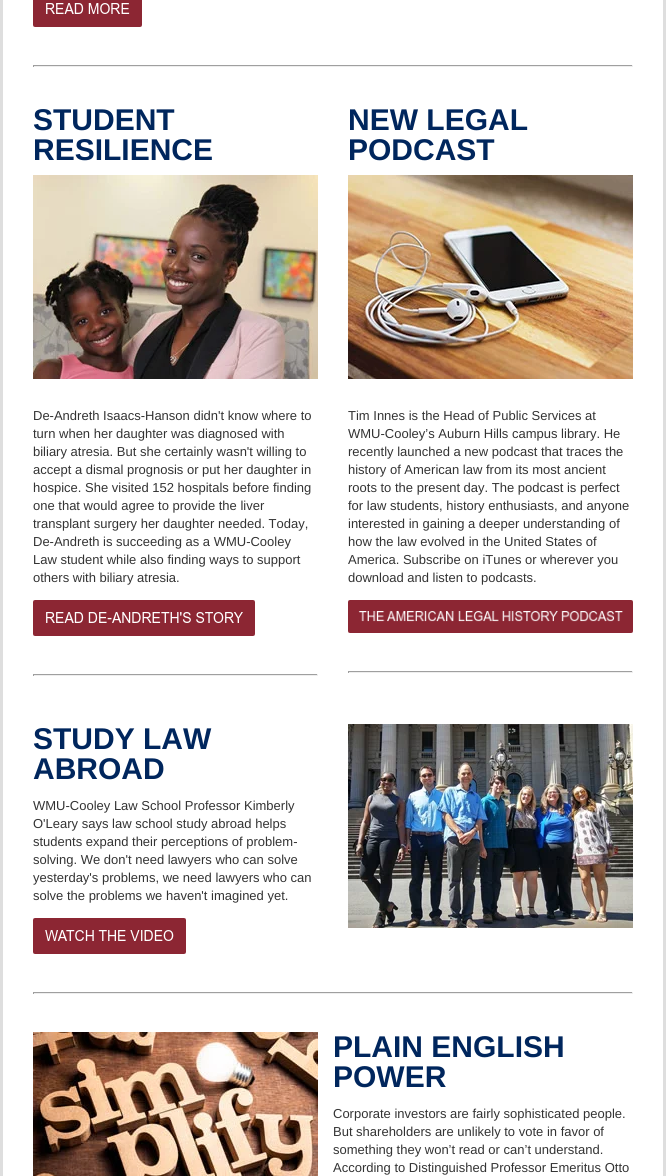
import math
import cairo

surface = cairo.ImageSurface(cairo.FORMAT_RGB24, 666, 1176)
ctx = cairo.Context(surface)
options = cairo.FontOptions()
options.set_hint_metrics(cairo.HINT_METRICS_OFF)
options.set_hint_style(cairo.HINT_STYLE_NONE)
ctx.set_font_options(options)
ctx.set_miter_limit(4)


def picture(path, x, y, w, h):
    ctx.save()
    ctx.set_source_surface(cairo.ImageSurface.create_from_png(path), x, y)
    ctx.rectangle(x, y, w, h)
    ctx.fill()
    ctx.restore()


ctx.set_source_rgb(0.871, 0.871, 0.871)
ctx.paint()
ctx.set_source_rgb(1, 1, 1)
ctx.rectangle(3, 0, 660, 1176)
ctx.fill()
picture("img1.png", 33, 0, 109, 27)
ctx.set_source_rgb(0.624, 0.624, 0.624)
ctx.rectangle(33, 65, 600, 1)
ctx.fill()
ctx.set_source_rgb(0.933, 0.933, 0.933)
ctx.rectangle(632, 65, 1, 2)
ctx.fill()
ctx.rectangle(33, 66, 600, 1)
ctx.fill()
ctx.set_source_rgb(0.624, 0.624, 0.624)
ctx.rectangle(33, 65, 1, 2)
ctx.fill()
ctx.select_font_face("Liberation Sans", cairo.FONT_SLANT_NORMAL, cairo.FONT_WEIGHT_BOLD)
ctx.set_font_size(30)
ctx.set_source_rgb(0, 0.149, 0.365)
ctx.move_to(33, 130)
ctx.show_text("STUDENT")
ctx.move_to(33, 160)
ctx.show_text("RESILIENCE")
picture("img2.png", 33, 175, 285, 204)
ctx.select_font_face("Liberation Sans")
ctx.set_font_size(13)
ctx.set_source_rgb(0.2, 0.2, 0.2)
ctx.move_to(33, 420)
ctx.show_text("De-Andreth Isaacs-Hanson didn't know where to")
ctx.move_to(33, 438)
ctx.show_text("turn when her daughter was diagnosed with")
ctx.move_to(33, 456)
ctx.show_text("biliary atresia. But she certainly wasn't willing to")
ctx.move_to(33, 474)
ctx.show_text("accept a dismal prognosis or put her daughter in")
ctx.move_to(33, 492)
ctx.show_text("hospice. She visited 152 hospitals before finding")
ctx.move_to(33, 510)
ctx.show_text("one that would agree to provide the liver")
ctx.move_to(33, 528)
ctx.show_text("transplant surgery her daughter needed. Today,")
ctx.move_to(33, 546)
ctx.show_text("De-Andreth is succeeding as a WMU-Cooley")
ctx.move_to(33, 564)
ctx.show_text("Law student while also finding ways to support")
ctx.move_to(33, 582)
ctx.show_text("others with biliary atresia.")
picture("img3.png", 33, 600, 222, 36)
ctx.set_source_rgb(0.624, 0.624, 0.624)
ctx.rectangle(33, 674, 285, 1)
ctx.fill()
ctx.set_source_rgb(0.933, 0.933, 0.933)
ctx.rectangle(317, 674, 1, 2)
ctx.fill()
ctx.rectangle(33, 675, 285, 1)
ctx.fill()
ctx.set_source_rgb(0.624, 0.624, 0.624)
ctx.rectangle(33, 674, 1, 2)
ctx.fill()
ctx.select_font_face("Liberation Sans", cairo.FONT_SLANT_NORMAL, cairo.FONT_WEIGHT_BOLD)
ctx.set_font_size(30)
ctx.set_source_rgb(0, 0.149, 0.365)
ctx.move_to(348, 130)
ctx.show_text("NEW LEGAL")
ctx.move_to(348, 160)
ctx.show_text("PODCAST")
picture("img4.png", 348, 175, 285, 204)
ctx.select_font_face("Liberation Sans")
ctx.set_font_size(13)
ctx.set_source_rgb(0.2, 0.2, 0.2)
ctx.move_to(348, 420)
ctx.show_text("Tim Innes is the Head of Public Services at")
ctx.move_to(348, 438)
ctx.show_text("WMU-Cooley’s Auburn Hills campus library. He")
ctx.move_to(348, 456)
ctx.show_text("recently launched a new podcast that traces the")
ctx.move_to(348, 474)
ctx.show_text("history of American law from its most ancient")
ctx.move_to(348, 492)
ctx.show_text("roots to the present day. The podcast is perfect")
ctx.move_to(348, 510)
ctx.show_text("for law students, history enthusiasts, and anyone")
ctx.move_to(348, 528)
ctx.show_text("interested in gaining a deeper understanding of")
ctx.move_to(348, 546)
ctx.show_text("how the law evolved in the United States of")
ctx.move_to(348, 564)
ctx.show_text("America. Subscribe on iTunes or wherever you")
ctx.move_to(348, 582)
ctx.show_text("download and listen to podcasts.")
picture("img5.png", 348, 600, 285, 33)
ctx.set_source_rgb(0.624, 0.624, 0.624)
ctx.rectangle(348, 671, 285, 1)
ctx.fill()
ctx.set_source_rgb(0.933, 0.933, 0.933)
ctx.rectangle(632, 671, 1, 2)
ctx.fill()
ctx.rectangle(348, 672, 285, 1)
ctx.fill()
ctx.set_source_rgb(0.624, 0.624, 0.624)
ctx.rectangle(348, 671, 1, 2)
ctx.fill()
ctx.select_font_face("Liberation Sans", cairo.FONT_SLANT_NORMAL, cairo.FONT_WEIGHT_BOLD)
ctx.set_font_size(30)
ctx.set_source_rgb(0, 0.149, 0.365)
ctx.move_to(33, 749)
ctx.show_text("STUDY LAW")
ctx.move_to(33, 779)
ctx.show_text("ABROAD")
ctx.select_font_face("Liberation Sans")
ctx.set_font_size(13)
ctx.set_source_rgb(0.2, 0.2, 0.2)
ctx.move_to(33, 810)
ctx.show_text("WMU-Cooley Law School Professor Kimberly")
ctx.move_to(33, 828)
ctx.show_text("O'Leary says law school study abroad helps")
ctx.move_to(33, 846)
ctx.show_text("students expand their perceptions of problem-")
ctx.move_to(33, 864)
ctx.show_text("solving. We don't need lawyers who can solve")
ctx.move_to(33, 882)
ctx.show_text("yesterday's problems, we need lawyers who can")
ctx.move_to(33, 900)
ctx.show_text("solve the problems we haven't imagined yet.")
picture("img6.png", 33, 918, 153, 36)
picture("img7.png", 348, 724, 285, 204)
ctx.set_source_rgb(0.624, 0.624, 0.624)
ctx.rectangle(33, 992, 600, 1)
ctx.fill()
ctx.set_source_rgb(0.933, 0.933, 0.933)
ctx.rectangle(632, 992, 1, 2)
ctx.fill()
ctx.rectangle(33, 993, 600, 1)
ctx.fill()
ctx.set_source_rgb(0.624, 0.624, 0.624)
ctx.rectangle(33, 992, 1, 2)
ctx.fill()
picture("img8.png", 33, 1032, 285, 144)
ctx.select_font_face("Liberation Sans", cairo.FONT_SLANT_NORMAL, cairo.FONT_WEIGHT_BOLD)
ctx.set_font_size(30)
ctx.set_source_rgb(0, 0.149, 0.365)
ctx.move_to(333, 1057)
ctx.show_text("PLAIN ENGLISH")
ctx.move_to(333, 1087)
ctx.show_text("POWER")
ctx.select_font_face("Liberation Sans")
ctx.set_font_size(13)
ctx.set_source_rgb(0.2, 0.2, 0.2)
ctx.move_to(333, 1118)
ctx.show_text("Corporate investors are fairly sophisticated people.")
ctx.move_to(333, 1136)
ctx.show_text("But shareholders are unlikely to vote in favor of")
ctx.move_to(333, 1154)
ctx.show_text("something they won’t read or can’t understand.")
ctx.move_to(333, 1172)
ctx.show_text("According to Distinguished Professor Emeritus Otto")
surface.write_to_png("page.png")
